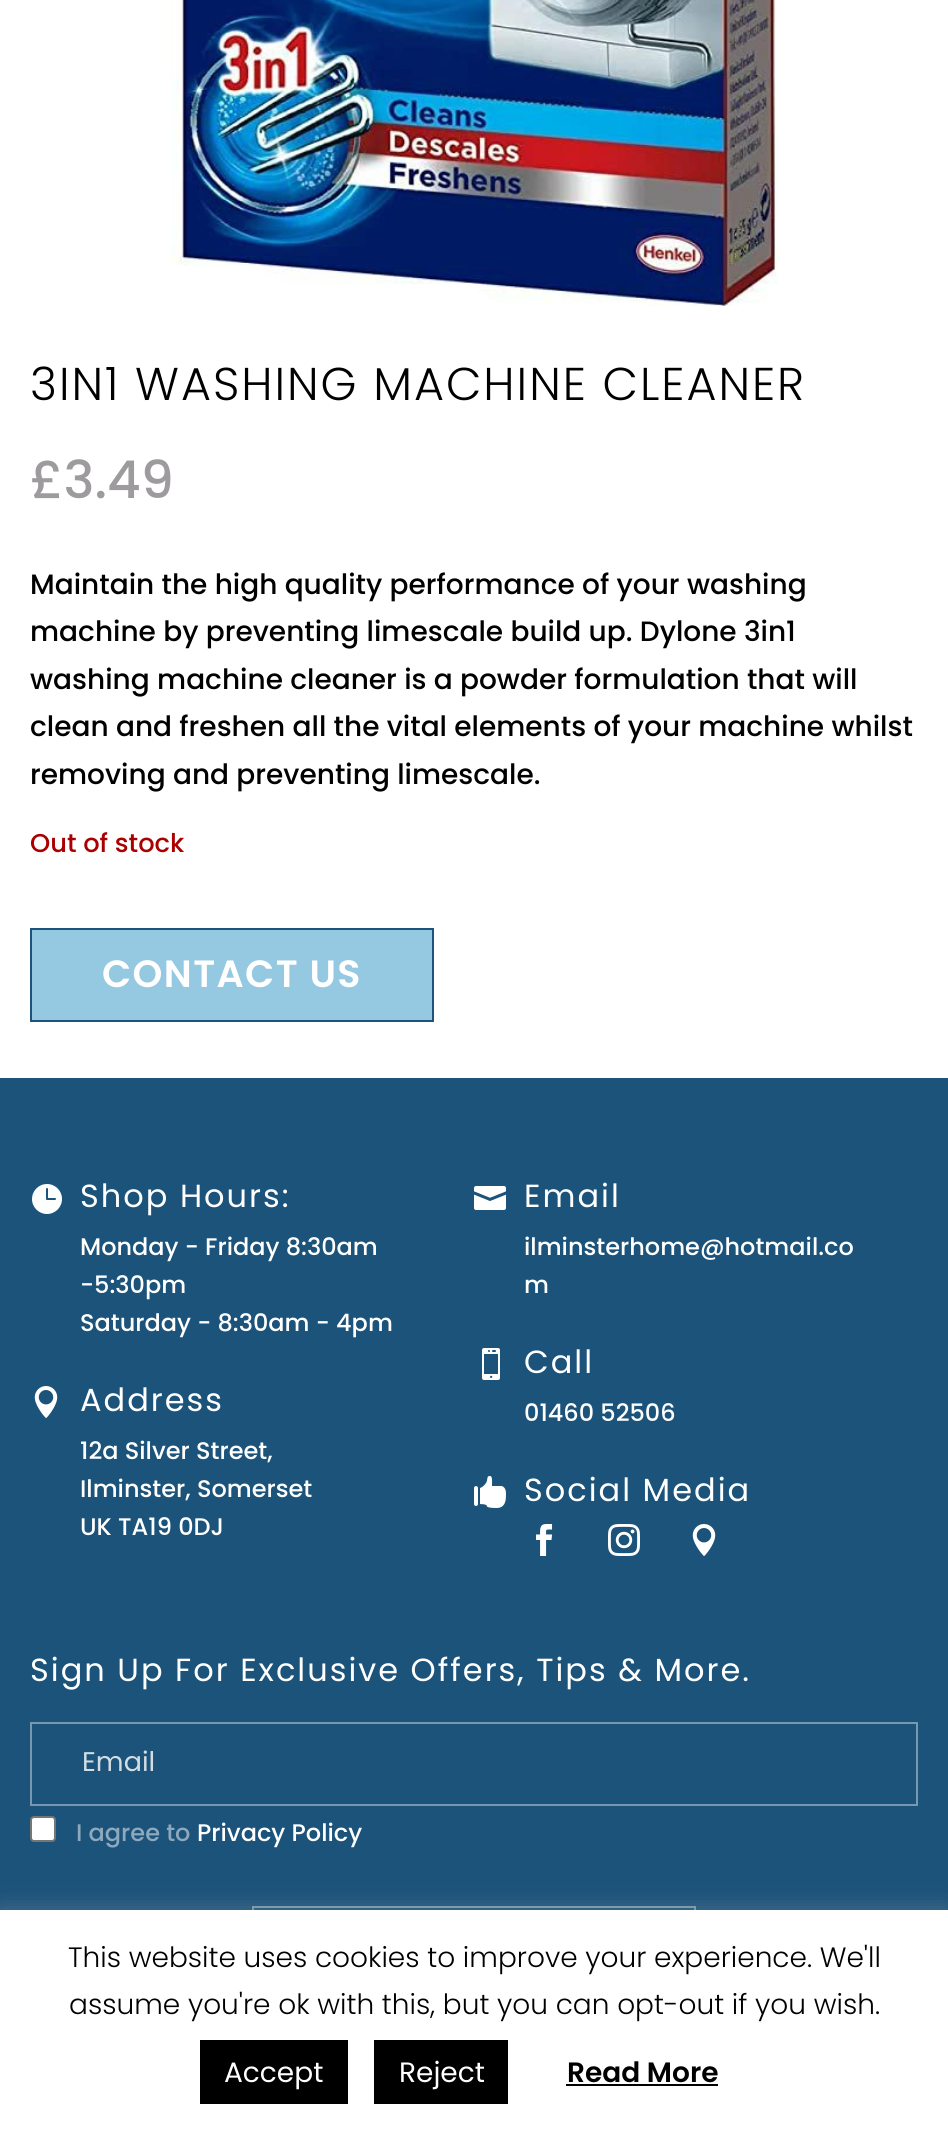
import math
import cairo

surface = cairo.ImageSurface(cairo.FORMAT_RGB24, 948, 2137)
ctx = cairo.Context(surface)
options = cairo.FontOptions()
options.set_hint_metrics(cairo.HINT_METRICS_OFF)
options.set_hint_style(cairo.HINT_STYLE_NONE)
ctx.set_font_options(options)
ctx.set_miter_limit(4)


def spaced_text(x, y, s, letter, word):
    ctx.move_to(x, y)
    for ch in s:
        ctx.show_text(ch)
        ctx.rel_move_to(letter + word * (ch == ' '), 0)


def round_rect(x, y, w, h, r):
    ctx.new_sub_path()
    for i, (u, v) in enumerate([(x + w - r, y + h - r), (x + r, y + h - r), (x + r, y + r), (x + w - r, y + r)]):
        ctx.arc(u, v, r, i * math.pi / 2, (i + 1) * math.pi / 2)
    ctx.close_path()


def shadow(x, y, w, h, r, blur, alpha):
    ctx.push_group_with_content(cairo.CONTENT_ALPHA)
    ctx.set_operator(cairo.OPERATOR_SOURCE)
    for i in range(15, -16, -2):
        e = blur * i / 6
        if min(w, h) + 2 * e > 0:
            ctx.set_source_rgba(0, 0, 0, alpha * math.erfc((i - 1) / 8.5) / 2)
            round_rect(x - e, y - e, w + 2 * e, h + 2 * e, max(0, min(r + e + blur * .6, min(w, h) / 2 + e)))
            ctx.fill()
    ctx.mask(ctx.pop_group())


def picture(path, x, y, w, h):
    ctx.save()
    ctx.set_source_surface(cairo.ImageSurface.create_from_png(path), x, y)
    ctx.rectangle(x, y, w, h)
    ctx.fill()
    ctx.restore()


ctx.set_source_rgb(1, 1, 1)
ctx.paint()
picture("img1.png", 170, 0, 608, 306)
ctx.select_font_face("Poppins Light")
ctx.set_font_size(46)
ctx.set_source_rgb(0, 0, 0)
spaced_text(30, 400, "3IN1 WASHING MACHINE CLEANER", 2, 0)
ctx.select_font_face("Poppins Medium")
ctx.set_font_size(52)
ctx.set_source_rgb(0.62, 0.608, 0.62)
ctx.move_to(30, 498)
ctx.show_text("£3.49")
ctx.set_font_size(28)
ctx.set_source_rgb(0, 0, 0)
ctx.move_to(30, 594)
ctx.show_text("Maintain the high quality performance of your washing")
ctx.move_to(30, 641)
ctx.show_text("machine by preventing limescale build up. Dylone 3in1")
ctx.move_to(30, 689)
ctx.show_text("washing machine cleaner is a powder formulation that will")
ctx.move_to(30, 736)
ctx.show_text("clean and freshen all the vital elements of your machine whilst")
ctx.move_to(30, 784)
ctx.show_text("removing and preventing limescale.")
ctx.set_font_size(25.75)
ctx.set_source_rgb(0.667, 0, 0)
ctx.move_to(30, 852)
ctx.show_text("Out of stock")
ctx.set_source_rgb(0.584, 0.788, 0.882)
ctx.rectangle(31, 929, 402, 92)
ctx.fill_preserve()
ctx.set_source_rgb(0.11, 0.325, 0.478)
ctx.stroke()
ctx.select_font_face("Poppins SemiBold")
ctx.set_font_size(38)
ctx.set_source_rgb(1, 1, 1)
spaced_text(102, 987, "CONTACT US", 1.4, 0)
ctx.set_source_rgb(0.11, 0.325, 0.478)
ctx.rectangle(0, 1078, 948, 832)
ctx.fill()
picture("img2.png", 32, 1184, 30, 30)
ctx.select_font_face("Poppins")
ctx.set_font_size(32)
ctx.set_source_rgb(1, 1, 1)
spaced_text(80, 1207, "Shop Hours:", 2, 0)
ctx.select_font_face("Poppins Medium")
ctx.set_font_size(24)
ctx.move_to(80, 1255)
ctx.show_text("Monday - Friday 8:30am")
ctx.move_to(80, 1293)
ctx.show_text("-5:30pm")
ctx.move_to(80, 1331)
ctx.show_text("Saturday - 8:30am - 4pm")
picture("img3.png", 34, 1386, 24, 32)
ctx.select_font_face("Poppins")
ctx.set_font_size(32)
spaced_text(80, 1411, "Address", 2, 0)
ctx.select_font_face("Poppins Medium")
ctx.set_font_size(24)
ctx.move_to(80, 1459)
ctx.show_text("12a Silver Street,")
ctx.move_to(80, 1497)
ctx.show_text("Ilminster, Somerset")
ctx.move_to(80, 1535)
ctx.show_text("UK TA19 0DJ")
picture("img4.png", 474, 1186, 32, 24)
ctx.select_font_face("Poppins")
ctx.set_font_size(32)
spaced_text(524, 1207, "Email", 2, 0)
ctx.select_font_face("Poppins Medium")
ctx.set_font_size(24)
ctx.move_to(524, 1255)
ctx.show_text("ilminsterhome@hotmail.co")
ctx.move_to(524, 1293)
ctx.show_text("m")
picture("img5.png", 482, 1348, 18, 32)
ctx.select_font_face("Poppins")
ctx.set_font_size(32)
spaced_text(524, 1373, "Call", 2, 0)
ctx.select_font_face("Poppins Medium")
ctx.set_font_size(24)
ctx.move_to(524, 1421)
ctx.show_text("01460 52506")
picture("img6.png", 474, 1476, 32, 32)
ctx.select_font_face("Poppins")
ctx.set_font_size(32)
spaced_text(524, 1501, "Social Media", 2, 0)
picture("img7.png", 536, 1524, 17, 32)
picture("img8.png", 608, 1524, 32, 32)
picture("img3.png", 692, 1524, 24, 32)
spaced_text(30, 1681, "Sign Up For Exclusive Offers, Tips & More.", 2, 0)
ctx.rectangle(31, 1723, 886, 82)
ctx.set_source_rgb(0.467, 0.596, 0.686)
ctx.stroke()
ctx.set_font_size(27)
ctx.set_source_rgb(0.824, 0.867, 0.894)
ctx.move_to(82, 1771)
ctx.show_text("Email")
ctx.set_source_rgb(1, 1, 1)
round_rect(31, 1817, 24, 24, 3)
ctx.fill_preserve()
ctx.set_source_rgb(0.463, 0.463, 0.463)
ctx.stroke()
ctx.select_font_face("Poppins Medium")
ctx.set_font_size(24)
ctx.set_source_rgb(0.557, 0.663, 0.741)
ctx.move_to(76, 1841)
ctx.show_text("I agree to")
ctx.set_source_rgb(1, 1, 1)
ctx.move_to(197, 1841)
ctx.show_text("Privacy Policy")
ctx.rectangle(253, 1907, 442, 82)
ctx.set_source_rgb(0.467, 0.596, 0.686)
ctx.stroke()
ctx.set_source_rgb(0.675, 0.671, 0.671)
shadow(0, 1908, 948, 228, 0, 10, 0.3)
ctx.set_source_rgb(1, 1, 1)
ctx.rectangle(0, 1910, 948, 227)
ctx.fill()
ctx.select_font_face("Poppins Light")
ctx.set_font_size(28)
ctx.set_source_rgb(0, 0, 0)
ctx.move_to(68, 1967)
ctx.show_text("This website uses cookies to improve your experience. We'll")
ctx.move_to(69, 2014)
ctx.show_text("assume you're ok with this, but you can opt-out if you wish.")
ctx.rectangle(200, 2040, 148, 64)
ctx.fill()
ctx.select_font_face("Poppins")
ctx.set_source_rgb(1, 1, 1)
ctx.move_to(224, 2082)
ctx.show_text("Accept")
ctx.set_source_rgb(0, 0, 0)
ctx.rectangle(374, 2040, 134, 64)
ctx.fill()
ctx.set_source_rgb(1, 1, 1)
ctx.move_to(399, 2082)
ctx.show_text("Reject")
ctx.select_font_face("Poppins SemiBold")
ctx.set_source_rgb(0, 0, 0)
ctx.move_to(567, 2082)
ctx.show_text("Read More")
ctx.rectangle(566, 2084, 152, 2)
ctx.fill()
surface.write_to_png("page.png")
